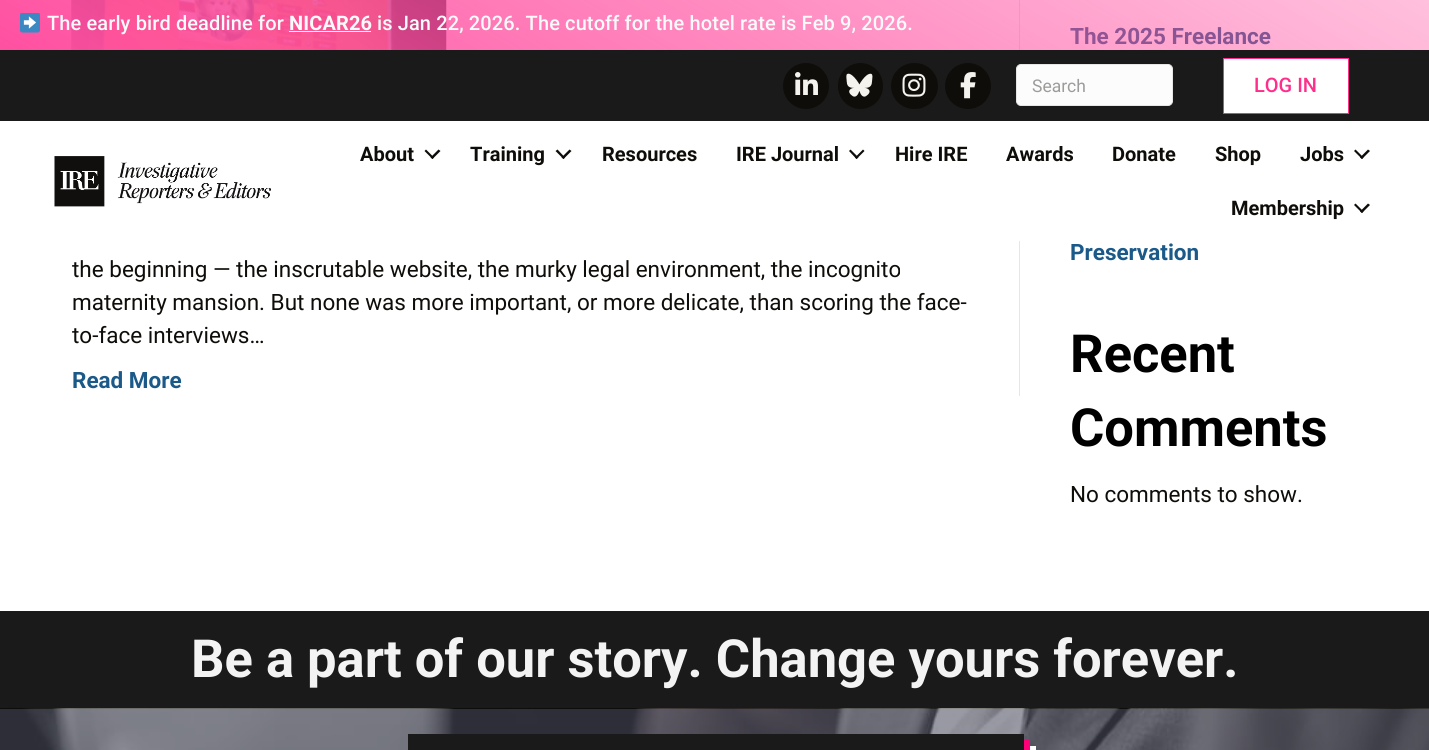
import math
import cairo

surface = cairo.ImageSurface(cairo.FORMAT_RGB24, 1429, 750)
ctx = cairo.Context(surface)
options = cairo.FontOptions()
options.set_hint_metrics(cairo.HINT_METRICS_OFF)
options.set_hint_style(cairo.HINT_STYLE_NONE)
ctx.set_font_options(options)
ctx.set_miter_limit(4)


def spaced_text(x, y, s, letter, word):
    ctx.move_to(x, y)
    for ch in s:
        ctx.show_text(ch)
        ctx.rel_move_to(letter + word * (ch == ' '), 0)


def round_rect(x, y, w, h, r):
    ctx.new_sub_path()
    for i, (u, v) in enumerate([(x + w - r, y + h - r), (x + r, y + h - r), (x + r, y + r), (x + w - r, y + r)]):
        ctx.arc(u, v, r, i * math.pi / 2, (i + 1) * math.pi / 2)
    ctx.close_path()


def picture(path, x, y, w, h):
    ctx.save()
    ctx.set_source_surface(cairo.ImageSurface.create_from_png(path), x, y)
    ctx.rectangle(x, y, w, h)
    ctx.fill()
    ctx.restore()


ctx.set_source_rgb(1, 1, 1)
ctx.paint()
ctx.set_source_rgb(0.902, 0.902, 0.902)
ctx.rectangle(1019, 0, 1, 396)
ctx.fill()
picture("img7.png", 71, 0, 376, 50)
ctx.select_font_face("Roboto", cairo.FONT_SLANT_NORMAL, cairo.FONT_WEIGHT_BOLD)
ctx.set_font_size(22.5)
ctx.set_source_rgb(0.102, 0.349, 0.533)
ctx.move_to(1070, 44)
ctx.show_text("The 2025 Freelance")
gradient = cairo.LinearGradient(525, 353, 905, -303)
gradient.add_color_stop_rgba(0, 1, 0.314, 0.631, 1)
gradient.add_color_stop_rgba(1, 1, 0.314, 0.631, 0.36)
ctx.set_source(gradient)
ctx.rectangle(0, 0, 1429, 50)
ctx.fill()
picture("img1.png", 20, 13, 20, 20)
ctx.select_font_face("Roboto Medium")
ctx.set_font_size(20)
ctx.set_source_rgb(0.98, 0.98, 0.98)
spaced_text(47, 30, "The early bird deadline for", 0.12, 0)
ctx.select_font_face("Roboto", cairo.FONT_SLANT_NORMAL, cairo.FONT_WEIGHT_BOLD)
spaced_text(289, 30, "NICAR26", 0.12, 0)
ctx.rectangle(289, 31, 82, 1)
ctx.fill()
ctx.select_font_face("Roboto Medium")
spaced_text(377, 30, "is Jan 22, 2026. The cutoff for the hotel rate is Feb 9, 2026.", 0.12, 0)
ctx.set_source_rgb(0.102, 0.102, 0.102)
ctx.rectangle(0, 50, 1429, 71)
ctx.fill()
ctx.set_source_rgb(0.059, 0.051, 0.039)
ctx.arc(806, 86, 23, 0, 2 * math.pi)
ctx.fill()
picture("img2.png", 795, 72, 23, 23)
round_rect(838, 63, 45, 46, 22.5)
ctx.fill()
picture("img3.png", 846, 73, 27, 24)
round_rect(891, 63, 47, 46, 23)
ctx.fill()
picture("img4.png", 902, 73, 24, 24)
ctx.arc(968, 86, 23, 0, 2 * math.pi)
ctx.fill()
picture("img5.png", 960, 72, 16, 27)
ctx.set_source_rgb(0.988, 0.988, 0.988)
round_rect(1016.5, 64.5, 156, 41, 4.5)
ctx.fill_preserve()
ctx.set_source_rgb(0.902, 0.902, 0.902)
ctx.set_line_width(1)
ctx.stroke()
ctx.select_font_face("Roboto")
ctx.set_font_size(17.5)
ctx.set_source_rgb(0.616, 0.612, 0.608)
ctx.move_to(1032, 92)
ctx.show_text("Search")
ctx.set_source_rgb(1, 1, 1)
ctx.rectangle(1223.5, 58.5, 125, 55)
ctx.fill_preserve()
ctx.set_source_rgb(1, 0.18, 0.541)
ctx.stroke()
ctx.select_font_face("Roboto Medium")
ctx.set_font_size(20)
ctx.move_to(1254, 92)
ctx.show_text("LOG IN")
ctx.set_source_rgb(1, 1, 1)
ctx.rectangle(1019, 121, 1, 120)
ctx.fill()
picture("img6.png", 54, 156, 217, 51)
ctx.select_font_face("Roboto", cairo.FONT_SLANT_NORMAL, cairo.FONT_WEIGHT_BOLD)
ctx.set_source_rgb(0.059, 0.051, 0.039)
ctx.move_to(360, 161)
ctx.show_text("About")
ctx.new_path()
ctx.move_to(438.5, 149.5)
ctx.line_to(440.5, 151)
ctx.line_to(432.5, 159)
ctx.line_to(430.5, 157.5)
ctx.close_path()
ctx.fill()
ctx.new_path()
ctx.move_to(426, 149.5)
ctx.line_to(434, 157.5)
ctx.line_to(432.5, 159)
ctx.line_to(424.5, 151)
ctx.close_path()
ctx.fill()
ctx.move_to(470, 161)
ctx.show_text("Training")
ctx.new_path()
ctx.move_to(569.5, 149.5)
ctx.line_to(571.5, 151)
ctx.line_to(563.5, 159)
ctx.line_to(561.5, 157.5)
ctx.close_path()
ctx.fill()
ctx.new_path()
ctx.move_to(557.5, 149.5)
ctx.line_to(565, 157.5)
ctx.line_to(563.5, 159)
ctx.line_to(555.5, 151)
ctx.close_path()
ctx.fill()
ctx.move_to(602, 161)
ctx.show_text("Resources")
ctx.move_to(736, 161)
ctx.show_text("IRE Journal")
ctx.new_path()
ctx.move_to(863, 149.5)
ctx.line_to(864.5, 151)
ctx.line_to(856.5, 159)
ctx.line_to(855, 157.5)
ctx.close_path()
ctx.fill()
ctx.new_path()
ctx.move_to(850.5, 149.5)
ctx.line_to(858.5, 157.5)
ctx.line_to(856.5, 159)
ctx.line_to(849, 151)
ctx.close_path()
ctx.fill()
ctx.move_to(895, 161)
ctx.show_text("Hire IRE")
ctx.move_to(1006, 161)
ctx.show_text("Awards")
ctx.move_to(1112, 161)
ctx.show_text("Donate")
ctx.move_to(1215, 161)
ctx.show_text("Shop")
ctx.move_to(1300, 161)
ctx.show_text("Jobs")
ctx.new_path()
ctx.move_to(1368, 149.5)
ctx.line_to(1370, 151)
ctx.line_to(1362, 159)
ctx.line_to(1360, 157.5)
ctx.close_path()
ctx.fill()
ctx.new_path()
ctx.move_to(1355.5, 149.5)
ctx.line_to(1363.5, 157.5)
ctx.line_to(1362, 159)
ctx.line_to(1354, 151)
ctx.close_path()
ctx.fill()
ctx.move_to(1231, 215)
ctx.show_text("Membership")
ctx.new_path()
ctx.move_to(1368, 203.5)
ctx.line_to(1370, 205)
ctx.line_to(1362, 213)
ctx.line_to(1360, 211.5)
ctx.close_path()
ctx.fill()
ctx.new_path()
ctx.move_to(1355.5, 203.5)
ctx.line_to(1363.5, 211.5)
ctx.line_to(1362, 213)
ctx.line_to(1354, 205)
ctx.close_path()
ctx.fill()
ctx.select_font_face("Roboto")
ctx.set_font_size(22.5)
ctx.move_to(72, 277)
ctx.show_text("the beginning — the inscrutable website, the murky legal environment, the incognito")
ctx.move_to(72, 310)
ctx.show_text("maternity mansion. But none was more important, or more delicate, than scoring the face-")
ctx.move_to(72, 343)
ctx.show_text("to-face interviews…")
ctx.select_font_face("Roboto", cairo.FONT_SLANT_NORMAL, cairo.FONT_WEIGHT_BOLD)
ctx.set_source_rgb(0.102, 0.349, 0.533)
ctx.move_to(72, 388)
ctx.show_text("Read More")
ctx.move_to(1070, 260)
ctx.show_text("Preservation")
ctx.set_font_size(52.5)
ctx.set_source_rgb(0, 0, 0)
ctx.move_to(1070, 372)
ctx.show_text("Recent")
ctx.move_to(1070, 446)
ctx.show_text("Comments")
ctx.select_font_face("Roboto")
ctx.set_font_size(22.5)
ctx.set_source_rgb(0.059, 0.051, 0.039)
ctx.move_to(1070, 502)
ctx.show_text("No comments to show.")
ctx.set_source_rgb(0.102, 0.102, 0.102)
ctx.rectangle(0, 611, 1429, 98)
ctx.fill()
ctx.select_font_face("Roboto", cairo.FONT_SLANT_NORMAL, cairo.FONT_WEIGHT_BOLD)
ctx.set_font_size(52.5)
ctx.set_source_rgb(0.953, 0.953, 0.953)
ctx.move_to(191, 677)
ctx.show_text("Be a part of our story. Change yours forever.")
picture("img8.png", 0, 708, 1429, 42)
ctx.set_source_rgb(1, 1, 1)
ctx.new_path()
ctx.move_to(420, 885)
ctx.line_to(420, 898)
ctx.line_to(1036, 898)
ctx.line_to(1036, 746)
ctx.line_to(1024, 746)
ctx.line_to(1024, 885)
ctx.close_path()
ctx.fill()
ctx.set_source_rgb(1, 0, 0.471)
ctx.new_path()
ctx.move_to(414, 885)
ctx.line_to(414, 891)
ctx.line_to(1030, 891)
ctx.line_to(1030, 740)
ctx.line_to(1024, 740)
ctx.line_to(1024, 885)
ctx.close_path()
ctx.fill()
ctx.set_source_rgb(0.102, 0.102, 0.102)
ctx.rectangle(408, 734, 616, 16)
ctx.fill()
surface.write_to_png("page.png")
